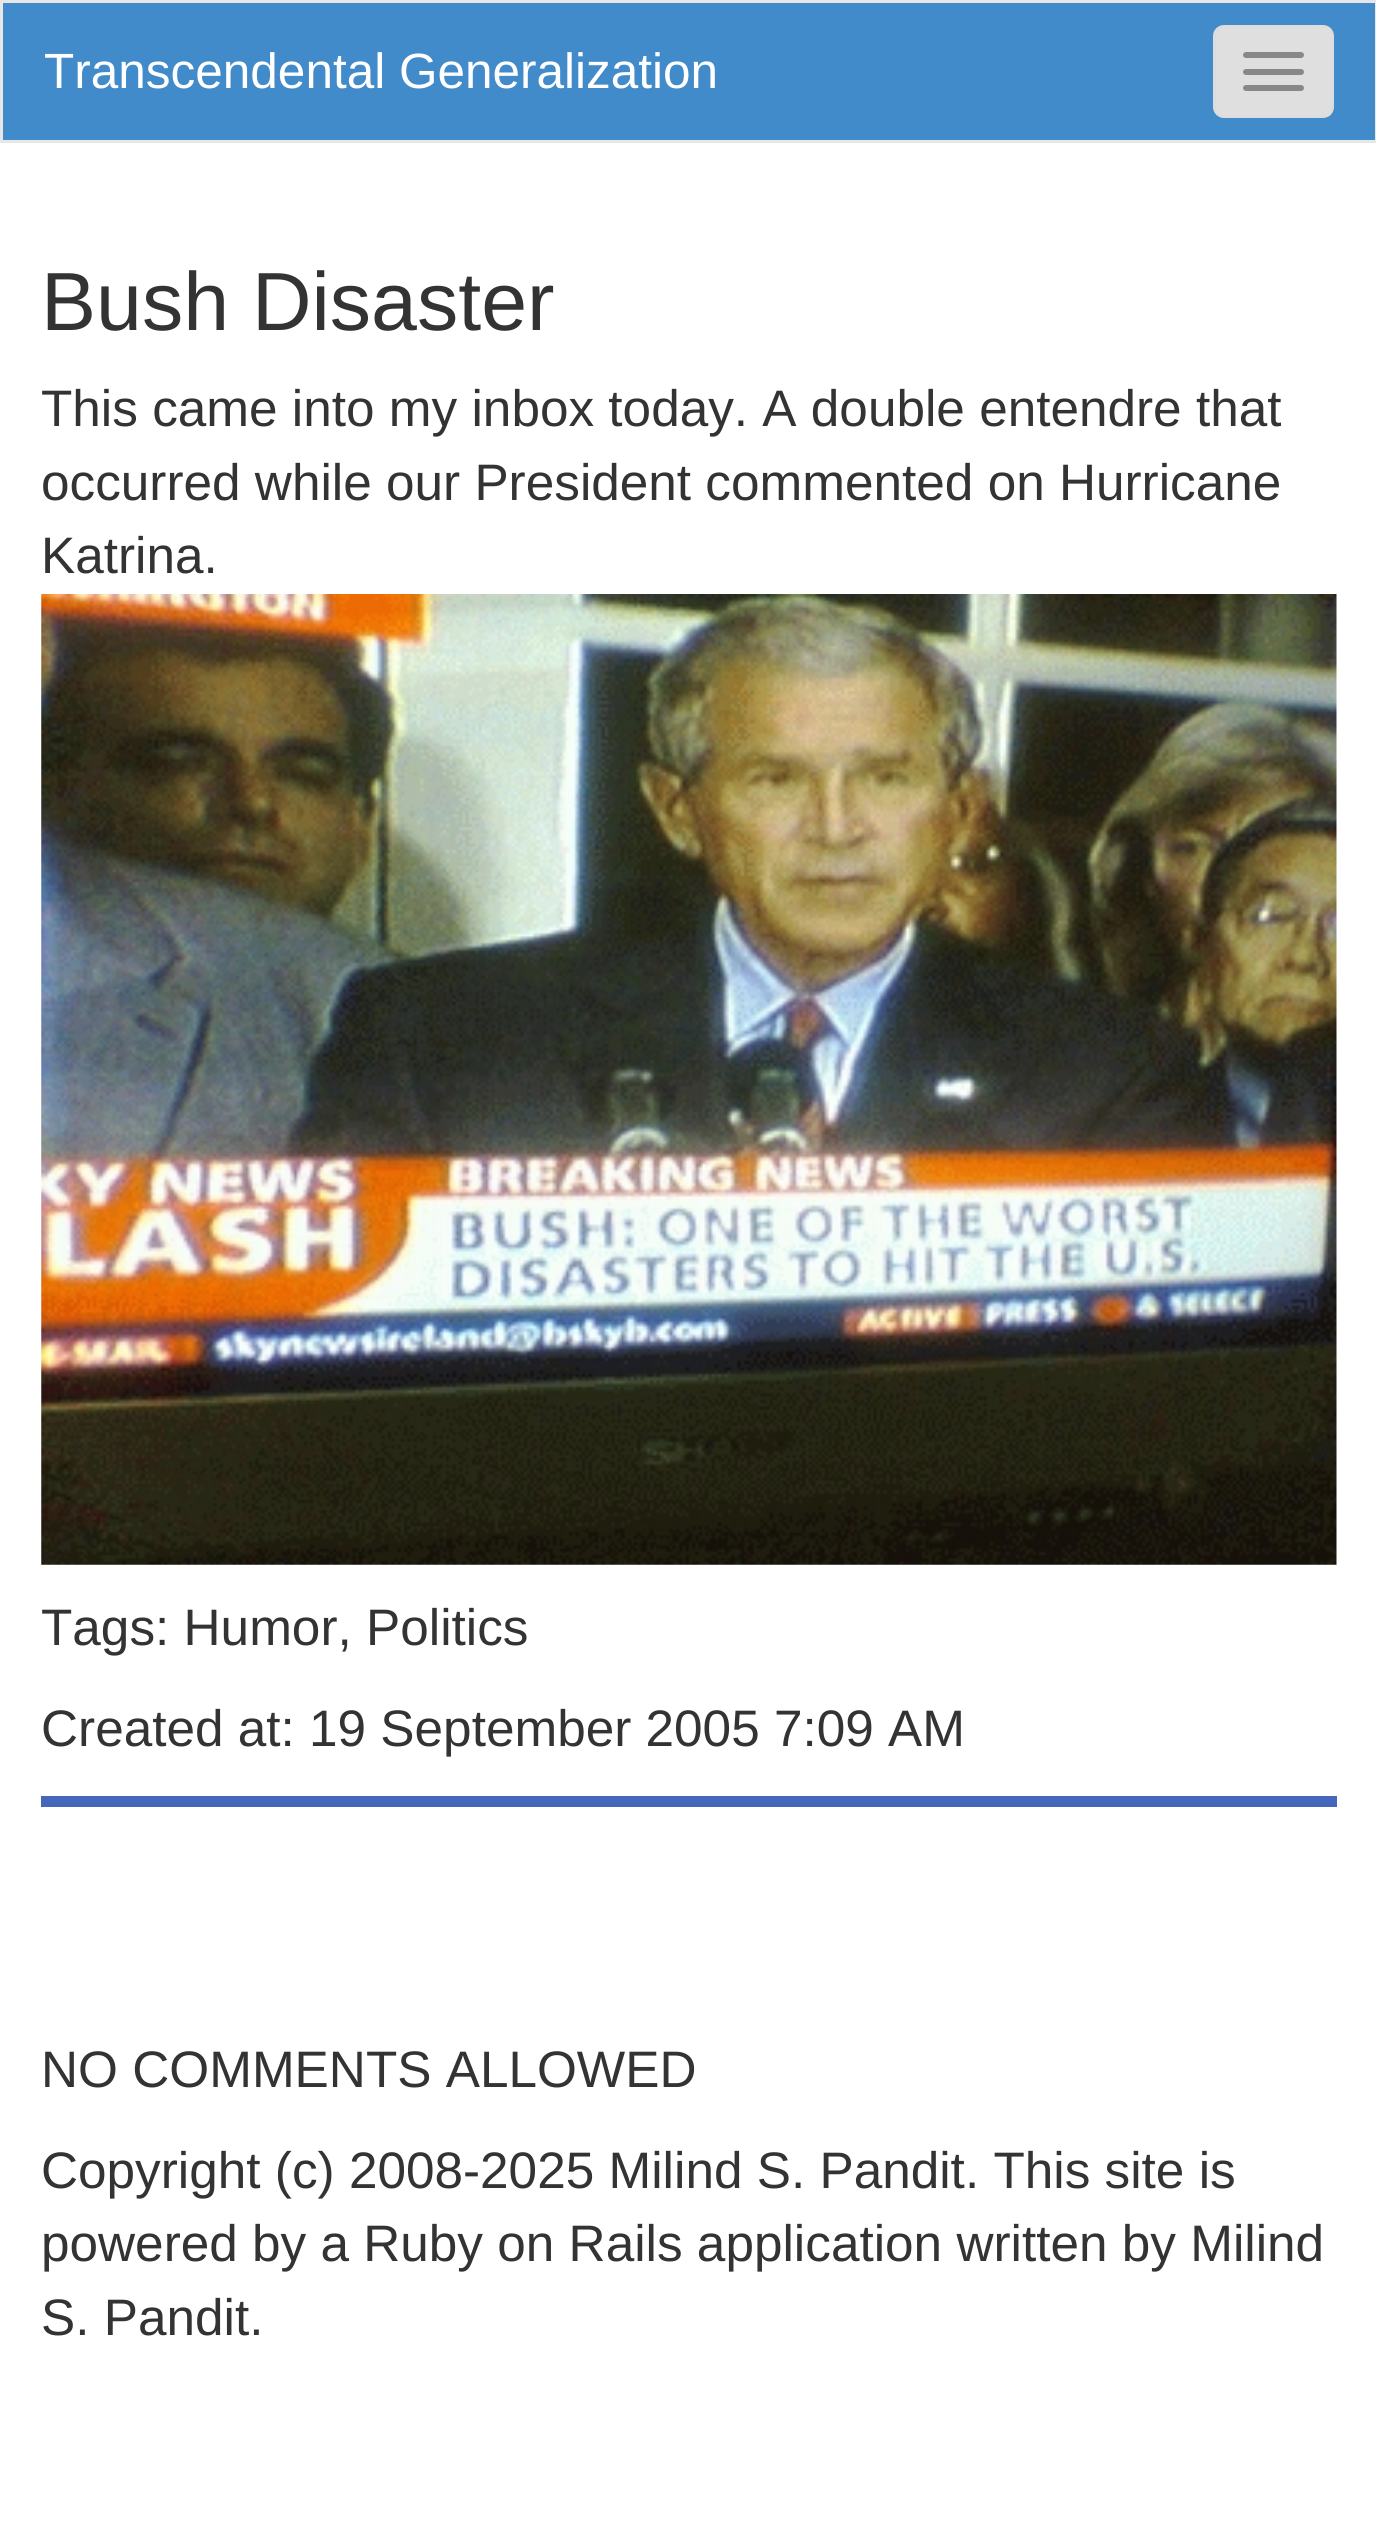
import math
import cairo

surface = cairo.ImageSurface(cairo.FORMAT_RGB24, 1376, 2521)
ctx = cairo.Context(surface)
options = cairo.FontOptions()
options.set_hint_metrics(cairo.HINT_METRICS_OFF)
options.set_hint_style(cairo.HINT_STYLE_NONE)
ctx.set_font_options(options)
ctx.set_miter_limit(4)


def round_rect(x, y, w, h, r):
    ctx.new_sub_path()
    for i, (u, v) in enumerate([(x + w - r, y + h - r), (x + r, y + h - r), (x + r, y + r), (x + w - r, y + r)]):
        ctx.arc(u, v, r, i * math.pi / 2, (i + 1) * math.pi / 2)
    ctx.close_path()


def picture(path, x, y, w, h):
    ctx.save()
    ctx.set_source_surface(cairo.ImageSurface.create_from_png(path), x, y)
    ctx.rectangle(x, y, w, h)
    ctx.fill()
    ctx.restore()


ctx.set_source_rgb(1, 1, 1)
ctx.paint()
ctx.set_source_rgb(0.259, 0.545, 0.792)
ctx.rectangle(1.5, 1.5, 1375, 140)
ctx.fill_preserve()
ctx.set_source_rgb(0.906, 0.906, 0.906)
ctx.set_line_width(3)
ctx.stroke()
ctx.select_font_face("Liberation Sans")
ctx.set_font_size(49.5)
ctx.set_source_rgb(1, 1, 1)
ctx.move_to(44, 88)
ctx.show_text("Transcendental Generalization")
ctx.set_source_rgb(0.875, 0.875, 0.875)
round_rect(1214.5, 26.5, 118, 90, 9.5)
ctx.fill_preserve()
ctx.set_source_rgb(0.867, 0.867, 0.867)
ctx.stroke()
ctx.set_source_rgb(0.533, 0.533, 0.533)
round_rect(1243, 52, 61, 6, 3)
ctx.fill()
round_rect(1243, 69, 61, 6, 3)
ctx.fill()
round_rect(1243, 85, 61, 6, 3)
ctx.fill()
ctx.set_font_size(82.5)
ctx.set_source_rgb(0.2, 0.2, 0.2)
ctx.move_to(41, 330)
ctx.show_text("Bush Disaster")
ctx.set_font_size(51.3)
ctx.move_to(41, 426)
ctx.show_text("This came into my inbox today. A double entendre that")
ctx.move_to(41, 500)
ctx.show_text("occurred while our President commented on Hurricane")
ctx.move_to(41, 573)
ctx.show_text("Katrina.")
picture("img1.png", 41, 594, 1296, 971)
ctx.move_to(41, 1645)
ctx.show_text("Tags: Humor, Politics")
ctx.move_to(41, 1746)
ctx.show_text("Created at: 19 September 2005")
ctx.move_to(774, 1746)
ctx.show_text("7:09 AM")
ctx.set_source_rgb(0.267, 0.4, 0.733)
ctx.rectangle(41, 1796, 1296, 11)
ctx.fill()
ctx.set_source_rgb(0.2, 0.2, 0.2)
ctx.move_to(41, 2087)
ctx.show_text("NO COMMENTS ALLOWED")
ctx.move_to(41, 2188)
ctx.show_text("Copyright (c) 2008-2025 Milind S. Pandit. This site is")
ctx.move_to(41, 2261)
ctx.show_text("powered by a Ruby on Rails application written by Milind")
ctx.move_to(41, 2335)
ctx.show_text("S. Pandit.")
surface.write_to_png("page.png")
